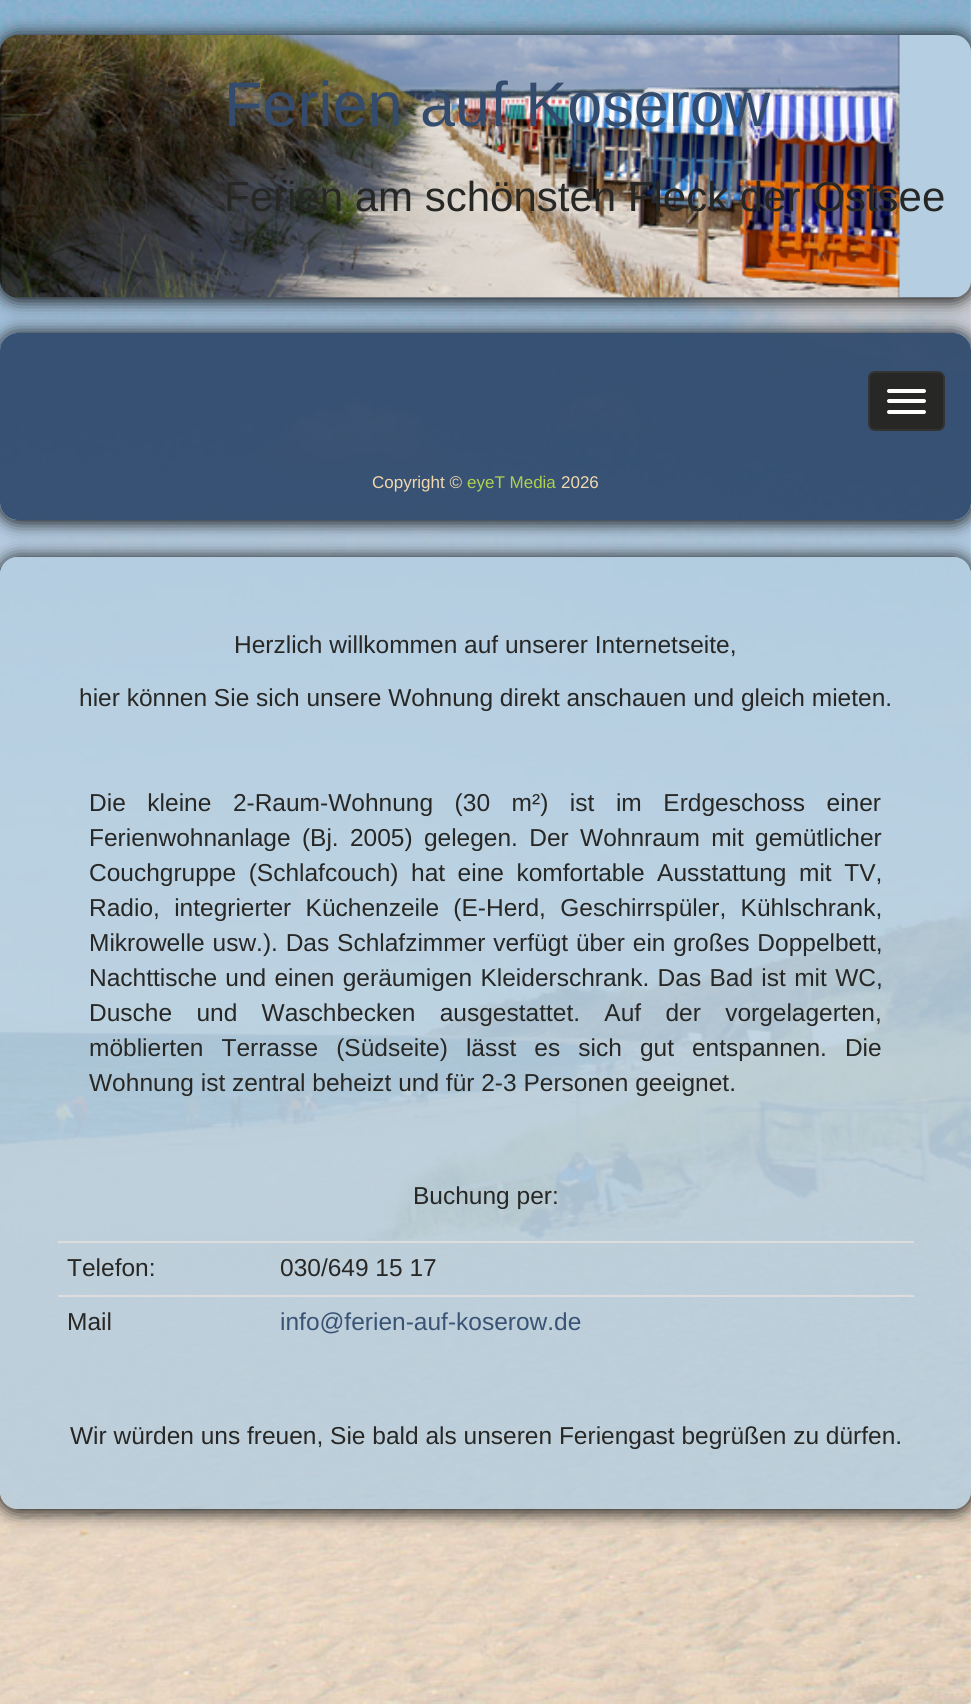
import math
import cairo

surface = cairo.ImageSurface(cairo.FORMAT_RGB24, 971, 1704)
ctx = cairo.Context(surface)
options = cairo.FontOptions()
options.set_hint_metrics(cairo.HINT_METRICS_OFF)
options.set_hint_style(cairo.HINT_STYLE_NONE)
ctx.set_font_options(options)
ctx.set_miter_limit(4)


def spaced_text(x, y, s, letter, word):
    ctx.move_to(x, y)
    for ch in s:
        ctx.show_text(ch)
        ctx.rel_move_to(letter + word * (ch == ' '), 0)


def round_rect(x, y, w, h, r):
    ctx.new_sub_path()
    for i, (u, v) in enumerate([(x + w - r, y + h - r), (x + r, y + h - r), (x + r, y + r), (x + w - r, y + r)]):
        ctx.arc(u, v, r, i * math.pi / 2, (i + 1) * math.pi / 2)
    ctx.close_path()


def shadow(x, y, w, h, r, blur, alpha):
    ctx.push_group_with_content(cairo.CONTENT_ALPHA)
    ctx.set_operator(cairo.OPERATOR_SOURCE)
    for i in range(15, -16, -2):
        e = blur * i / 6
        if min(w, h) + 2 * e > 0:
            ctx.set_source_rgba(0, 0, 0, alpha * math.erfc((i - 1) / 8.5) / 2)
            round_rect(x - e, y - e, w + 2 * e, h + 2 * e, max(0, min(r + e + blur * .6, min(w, h) / 2 + e)))
            ctx.fill()
    ctx.mask(ctx.pop_group())


def picture(path, x, y, w, h):
    ctx.save()
    ctx.set_source_surface(cairo.ImageSurface.create_from_png(path), x, y)
    ctx.rectangle(x, y, w, h)
    ctx.fill()
    ctx.restore()


ctx.set_source_rgb(1, 1, 1)
ctx.paint()
picture("img1.png", 0, 0, 971, 1704)
ctx.set_source_rgb(0.067, 0.067, 0.067)
shadow(-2, 35, 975, 266, 19, 9, 1)
picture("img2.png", 0, 35, 971, 263)
ctx.select_font_face("Liberation Sans")
ctx.set_font_size(63)
ctx.set_source_rgb(0.2, 0.294, 0.424)
ctx.move_to(224, 126)
ctx.show_text("Ferien auf Koserow")
ctx.set_font_size(42)
ctx.set_source_rgb(0.153, 0.153, 0.145)
ctx.move_to(224, 211)
ctx.show_text("Ferien am schönsten Fleck der Ostsee")
ctx.save()
ctx.set_fill_rule(cairo.FILL_RULE_EVEN_ODD)
ctx.new_path()
ctx.move_to(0, 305)
ctx.line_to(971, 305)
ctx.line_to(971, 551)
ctx.line_to(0, 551)
ctx.close_path()
ctx.move_to(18, 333)
ctx.line_to(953, 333)
ctx.curve_to(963, 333, 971, 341, 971, 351)
ctx.line_to(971, 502)
ctx.curve_to(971, 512, 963, 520, 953, 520)
ctx.line_to(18, 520)
ctx.curve_to(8, 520, 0, 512, 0, 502)
ctx.line_to(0, 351)
ctx.curve_to(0, 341, 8, 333, 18, 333)
ctx.close_path()
ctx.clip()
ctx.set_source_rgb(0.067, 0.067, 0.067)
shadow(-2, 333, 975, 190, 19, 9, 1)
ctx.restore()
ctx.set_source_rgba(0.165, 0.271, 0.412, 0.9)
round_rect(0, 333, 971, 187, 18)
ctx.fill()
ctx.set_source_rgb(0.153, 0.153, 0.145)
round_rect(869, 372, 75, 58, 6)
ctx.fill_preserve()
ctx.set_source_rgb(0.2, 0.2, 0.2)
ctx.stroke()
ctx.set_source_rgb(1, 1, 1)
round_rect(887, 389, 39, 4, 2)
ctx.fill()
round_rect(887, 399, 39, 4, 2)
ctx.fill()
round_rect(887, 410, 39, 4, 2)
ctx.fill()
ctx.set_font_size(17)
ctx.set_source_rgb(0.945, 0.847, 0.678)
ctx.move_to(372, 488)
ctx.show_text("Copyright ©")
ctx.set_source_rgb(0.69, 0.816, 0.314)
ctx.move_to(467, 488)
ctx.show_text("eyeT Media")
ctx.set_source_rgb(0.945, 0.847, 0.678)
ctx.move_to(561, 488)
ctx.show_text("2026")
ctx.save()
ctx.set_fill_rule(cairo.FILL_RULE_EVEN_ODD)
ctx.new_path()
ctx.move_to(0, 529)
ctx.line_to(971, 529)
ctx.line_to(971, 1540)
ctx.line_to(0, 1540)
ctx.close_path()
ctx.move_to(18, 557)
ctx.line_to(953, 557)
ctx.curve_to(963, 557, 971, 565, 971, 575)
ctx.line_to(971, 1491)
ctx.curve_to(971, 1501, 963, 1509, 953, 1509)
ctx.line_to(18, 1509)
ctx.curve_to(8, 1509, 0, 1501, 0, 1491)
ctx.line_to(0, 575)
ctx.curve_to(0, 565, 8, 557, 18, 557)
ctx.close_path()
ctx.clip()
ctx.set_source_rgb(0.067, 0.067, 0.067)
shadow(-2, 557, 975, 955, 19, 9, 1)
ctx.restore()
ctx.set_source_rgba(0.702, 0.804, 0.878, 0.8)
round_rect(0, 557, 971, 952, 18)
ctx.fill()
ctx.set_font_size(24.5)
ctx.set_source_rgb(0.153, 0.153, 0.145)
ctx.move_to(234, 653)
ctx.show_text("Herzlich willkommen auf unserer Internetseite,")
ctx.move_to(79, 706)
ctx.show_text("hier können Sie sich unsere Wohnung direkt anschauen und gleich mieten.")
spaced_text(89, 811, "Die kleine 2-Raum-Wohnung (30 m²) ist im Erdgeschoss einer", 0, 14.75)
spaced_text(89, 846, "Ferienwohnanlage (Bj. 2005) gelegen. Der Wohnraum mit gemütlicher", 0, 4.5)
spaced_text(89, 881, "Couchgruppe (Schlafcouch) hat eine komfortable Ausstattung mit TV,", 0, 5.75)
spaced_text(89, 916, "Radio, integrierter Küchenzeile (E-Herd, Geschirrspüler, Kühlschrank,", 0, 7.5)
spaced_text(89, 951, "Mikrowelle usw.). Das Schlafzimmer verfügt über ein großes Doppelbett,", 0, 1)
spaced_text(89, 986, "Nachttische und einen geräumigen Kleiderschrank. Das Bad ist mit WC,", 0, 1.5)
spaced_text(89, 1021, "Dusche und Waschbecken ausgestattet. Auf der vorgelagerten,", 0, 17.5)
spaced_text(89, 1056, "möblierten Terrasse (Südseite) lässt es sich gut entspannen. Die", 0, 11.25)
ctx.move_to(89, 1091)
ctx.show_text("Wohnung ist zentral beheizt und für 2-3 Personen geeignet.")
ctx.move_to(413, 1204)
ctx.show_text("Buchung per:")
ctx.move_to(67, 1276)
ctx.show_text("Telefon:")
ctx.set_source_rgb(0.867, 0.867, 0.867)
ctx.rectangle(58, 1241, 856, 2)
ctx.fill()
ctx.set_source_rgb(0.153, 0.153, 0.145)
ctx.move_to(280, 1276)
ctx.show_text("030/649 15 17")
ctx.move_to(67, 1330)
ctx.show_text("Mail")
ctx.set_source_rgb(0.867, 0.867, 0.867)
ctx.rectangle(58, 1295, 856, 2)
ctx.fill()
ctx.set_source_rgb(0.224, 0.325, 0.455)
ctx.move_to(280, 1330)
ctx.show_text("info@ferien-auf-koserow.de")
ctx.set_source_rgb(0.153, 0.153, 0.145)
ctx.move_to(70, 1444)
ctx.show_text("Wir würden uns freuen, Sie bald als unseren Feriengast begrüßen zu dürfen.")
surface.write_to_png("page.png")
